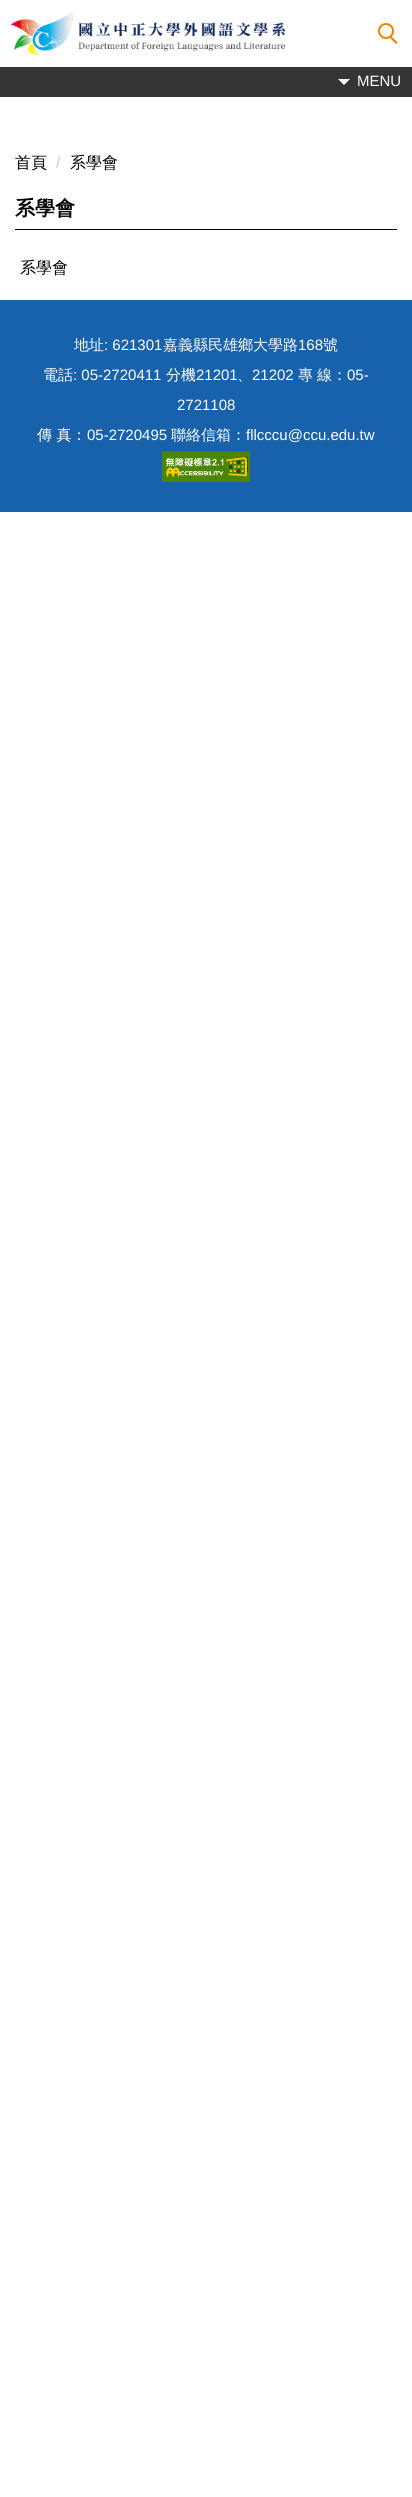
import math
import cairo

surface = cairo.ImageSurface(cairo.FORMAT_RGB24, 412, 2497)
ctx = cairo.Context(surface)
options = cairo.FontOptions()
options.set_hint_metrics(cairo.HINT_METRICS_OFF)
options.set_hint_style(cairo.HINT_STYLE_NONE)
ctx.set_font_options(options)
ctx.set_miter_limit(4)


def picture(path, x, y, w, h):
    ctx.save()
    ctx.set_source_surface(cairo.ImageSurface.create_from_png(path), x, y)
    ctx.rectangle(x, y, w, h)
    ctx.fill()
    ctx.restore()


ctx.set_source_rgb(1, 1, 1)
ctx.paint()
picture("img1.png", 10, 11, 275, 45)
ctx.arc(386, 31, 7, 0, 2 * math.pi)
ctx.set_source_rgb(0.941, 0.51, 0)
ctx.stroke()
ctx.new_path()
ctx.move_to(391, 36)
ctx.line_to(397.5, 42.5)
ctx.line_to(396, 44)
ctx.line_to(389.5, 37.5)
ctx.close_path()
ctx.fill()
ctx.set_source_rgb(0.208, 0.208, 0.208)
ctx.rectangle(0, 67, 412, 30)
ctx.fill()
ctx.set_source_rgb(1, 1, 1)
ctx.new_path()
ctx.move_to(338, 79)
ctx.line_to(350, 79)
ctx.line_to(344, 85)
ctx.close_path()
ctx.fill()
ctx.select_font_face("Liberation Sans")
ctx.set_font_size(15)
ctx.move_to(357, 86)
ctx.show_text("MENU")
ctx.select_font_face("WenQuanYi Zen Hei Medium")
ctx.set_font_size(16)
ctx.set_source_rgb(0, 0, 0)
ctx.move_to(15, 168)
ctx.show_text("首頁")
ctx.select_font_face("Liberation Sans")
ctx.set_source_rgb(0.8, 0.8, 0.8)
ctx.move_to(56, 168)
ctx.show_text("/")
ctx.select_font_face("WenQuanYi Zen Hei Medium")
ctx.set_source_rgb(0, 0, 0)
ctx.move_to(70, 168)
ctx.show_text("系學會")
ctx.rectangle(15, 229, 382, 1)
ctx.fill()
ctx.select_font_face("WenQuanYi Zen Hei", cairo.FONT_SLANT_NORMAL, cairo.FONT_WEIGHT_BOLD)
ctx.set_font_size(20)
ctx.move_to(15, 215)
ctx.show_text("系學會")
ctx.select_font_face("WenQuanYi Zen Hei Medium")
ctx.set_font_size(16)
ctx.move_to(20, 273)
ctx.show_text("系學會")
ctx.set_source_rgb(0.094, 0.384, 0.675)
ctx.rectangle(0, 300, 412, 212)
ctx.fill()
ctx.set_font_size(15)
ctx.set_source_rgb(1, 1, 1)
ctx.move_to(74, 350)
ctx.show_text("地址")
ctx.select_font_face("Liberation Sans")
ctx.move_to(104, 350)
ctx.show_text(": 621301")
ctx.select_font_face("WenQuanYi Zen Hei Medium")
ctx.move_to(163, 350)
ctx.show_text("嘉義縣民雄鄉大學路")
ctx.select_font_face("Liberation Sans")
ctx.move_to(298, 350)
ctx.show_text("168")
ctx.select_font_face("WenQuanYi Zen Hei Medium")
ctx.move_to(323, 350)
ctx.show_text("號")
ctx.move_to(43, 380)
ctx.show_text("電話")
ctx.select_font_face("Liberation Sans")
ctx.move_to(73, 380)
ctx.show_text(": 05-2720411")
ctx.select_font_face("WenQuanYi Zen Hei Medium")
ctx.move_to(166, 380)
ctx.show_text("分機")
ctx.select_font_face("Liberation Sans")
ctx.move_to(196, 380)
ctx.show_text("21201")
ctx.select_font_face("WenQuanYi Zen Hei Medium")
ctx.move_to(237, 380)
ctx.show_text("、")
ctx.select_font_face("Liberation Sans")
ctx.move_to(252, 380)
ctx.show_text("21202")
ctx.select_font_face("WenQuanYi Zen Hei Medium")
ctx.move_to(298, 380)
ctx.show_text("專")
ctx.move_to(317, 380)
ctx.show_text("線：")
ctx.select_font_face("Liberation Sans")
ctx.move_to(347, 380)
ctx.show_text("05-")
ctx.move_to(177, 410)
ctx.show_text("2721108")
ctx.select_font_face("WenQuanYi Zen Hei Medium")
ctx.move_to(37, 440)
ctx.show_text("傳 真：")
ctx.select_font_face("Liberation Sans")
ctx.move_to(87, 440)
ctx.show_text("05-2720495")
ctx.select_font_face("WenQuanYi Zen Hei Medium")
ctx.move_to(171, 440)
ctx.show_text("聯絡信箱：")
ctx.select_font_face("Liberation Sans")
ctx.move_to(246, 440)
ctx.show_text("fllcccu@ccu.edu.tw")
picture("img2.png", 162, 451, 88, 31)
surface.write_to_png("page.png")
